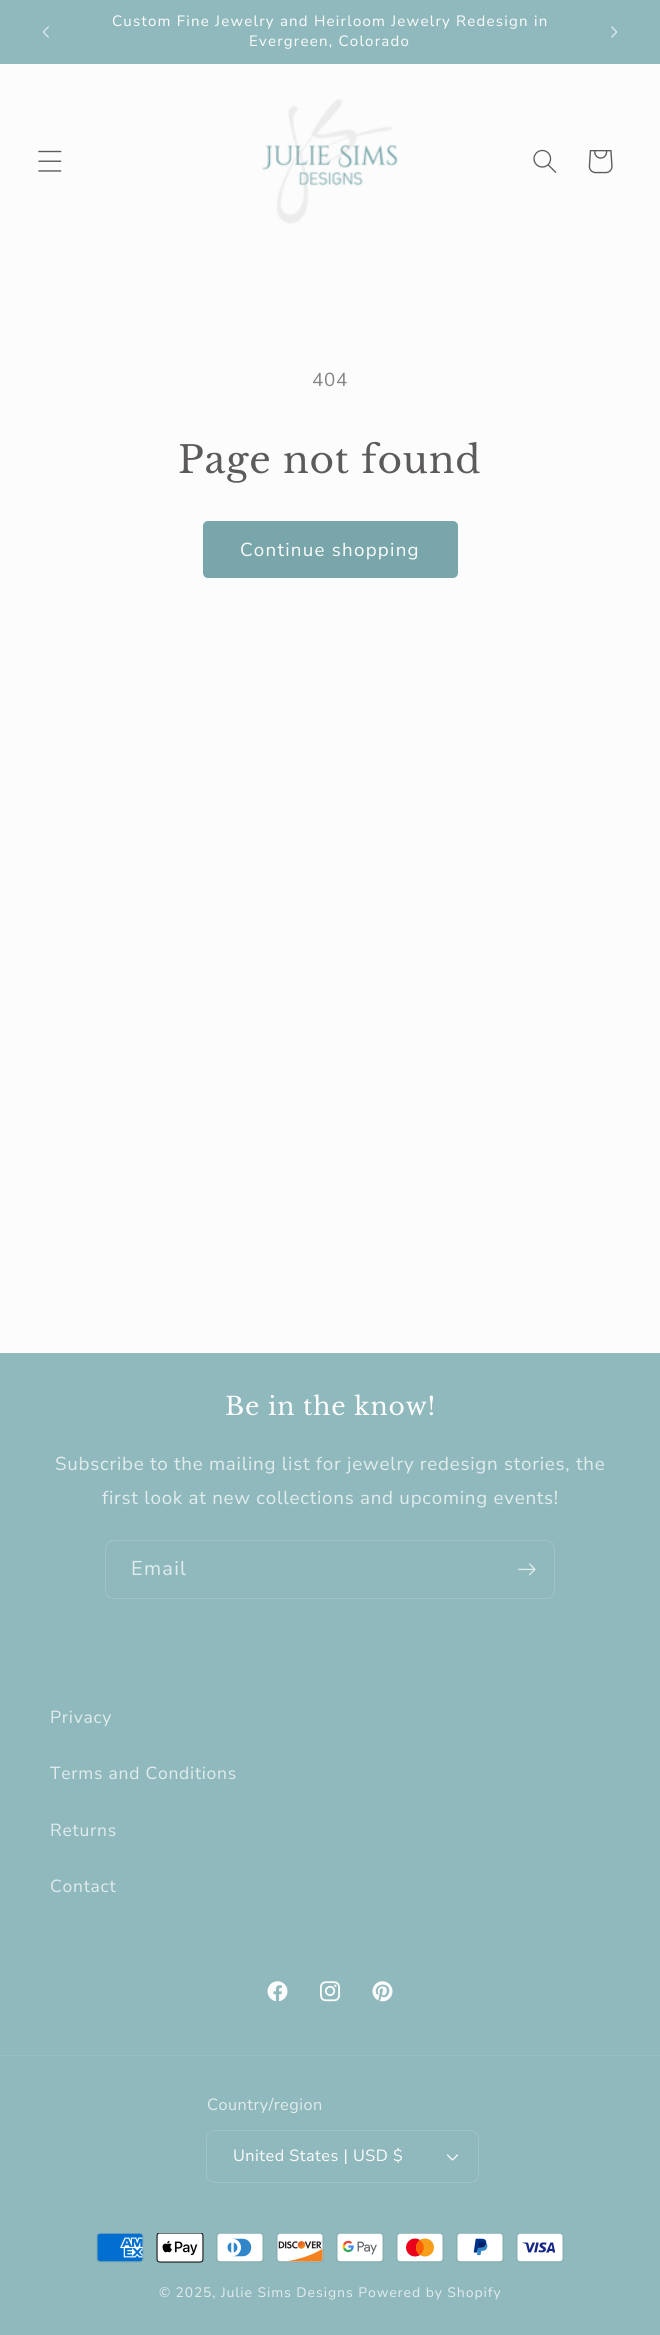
import math
import cairo

surface = cairo.ImageSurface(cairo.FORMAT_RGB24, 660, 2335)
ctx = cairo.Context(surface)
options = cairo.FontOptions()
options.set_hint_metrics(cairo.HINT_METRICS_OFF)
options.set_hint_style(cairo.HINT_STYLE_NONE)
ctx.set_font_options(options)
ctx.set_miter_limit(4)


def spaced_text(x, y, s, letter, word):
    ctx.move_to(x, y)
    for ch in s:
        ctx.show_text(ch)
        ctx.rel_move_to(letter + word * (ch == ' '), 0)


def round_rect(x, y, w, h, r):
    ctx.new_sub_path()
    for i, (u, v) in enumerate([(x + w - r, y + h - r), (x + r, y + h - r), (x + r, y + r), (x + w - r, y + r)]):
        ctx.arc(u, v, r, i * math.pi / 2, (i + 1) * math.pi / 2)
    ctx.close_path()


def picture(path, x, y, w, h):
    ctx.save()
    ctx.set_source_surface(cairo.ImageSurface.create_from_png(path), x, y)
    ctx.rectangle(x, y, w, h)
    ctx.fill()
    ctx.restore()


ctx.set_source_rgb(0.988, 0.988, 0.988)
ctx.paint()
ctx.set_source_rgb(0.565, 0.725, 0.741)
ctx.rectangle(0, 0, 660, 64)
ctx.fill()
picture("img1.png", 42, 26, 7, 12)
ctx.select_font_face("Nunito Sans")
ctx.set_font_size(15)
ctx.set_source_rgb(0.988, 0.988, 0.988)
spaced_text(112, 26, "Custom Fine Jewelry and Heirloom Jewelry Redesign in", 1.25, 0)
spaced_text(249, 46, "Evergreen, Colorado", 1.25, 0)
picture("img2.png", 611, 26, 7, 12)
picture("img3.png", 38, 150, 24, 22)
picture("img4.png", 262, 99, 136, 125)
picture("img5.png", 533, 149, 24, 24)
picture("img6.png", 588, 150, 25, 24)
ctx.set_font_size(18.75)
ctx.set_source_rgb(0.522, 0.514, 0.514)
spaced_text(312, 386, "404", 0.75, 0)
ctx.select_font_face("Libre Baskerville")
ctx.set_font_size(37.5)
ctx.set_source_rgb(0.365, 0.353, 0.353)
spaced_text(178, 473, "Page not found", 0.75, 0)
ctx.set_source_rgb(0.471, 0.651, 0.667)
round_rect(203, 521, 255, 57, 5)
ctx.fill()
ctx.select_font_face("Nunito Sans")
ctx.set_font_size(18.75)
ctx.set_source_rgb(0.988, 0.988, 0.988)
spaced_text(240, 556, "Continue shopping", 1.25, 0)
ctx.set_source_rgb(0.565, 0.725, 0.741)
ctx.rectangle(0, 1353, 660, 982)
ctx.fill()
ctx.select_font_face("Libre Baskerville")
ctx.set_font_size(25)
ctx.set_source_rgb(0.988, 0.988, 0.988)
spaced_text(225, 1415, "Be in the know!", 0.75, 0)
ctx.select_font_face("Nunito Sans")
ctx.set_font_size(18.75)
ctx.set_source_rgb(0.882, 0.922, 0.925)
spaced_text(55, 1470, "Subscribe to the mailing list for jewelry redesign stories, the", 0.75, 0)
spaced_text(102, 1504, "first look at new collections and upcoming events!", 0.75, 0)
round_rect(105.5, 1540.5, 449, 58, 8.5)
ctx.set_source_rgb(0.631, 0.765, 0.78)
ctx.set_line_width(1)
ctx.stroke()
ctx.set_font_size(20)
ctx.set_source_rgb(0.882, 0.922, 0.925)
spaced_text(131, 1575, "Email", 1.25, 0)
picture("img7.png", 518, 1563, 18, 13)
ctx.set_font_size(17.5)
spaced_text(50, 1723, "Privacy", 0.75, 0)
spaced_text(50, 1779, "Terms and Conditions", 0.75, 0)
spaced_text(50, 1836, "Returns", 0.75, 0)
spaced_text(50, 1892, "Contact", 0.75, 0)
picture("img8.png", 267, 1981, 21, 21)
picture("img9.png", 320, 1981, 20, 21)
picture("img10.png", 372, 1981, 21, 21)
ctx.set_source_rgb(0.6, 0.745, 0.761)
ctx.rectangle(0, 2055, 660, 1)
ctx.fill()
ctx.set_font_size(16.25)
ctx.set_source_rgb(0.882, 0.922, 0.925)
spaced_text(207, 2110, "Country/region", 0.5, 0)
picture("img11.png", 447, 2154, 11, 7)
round_rect(206.5, 2130.5, 272, 52, 8.5)
ctx.set_source_rgb(0.627, 0.765, 0.776)
ctx.stroke()
ctx.set_source_rgb(0.988, 0.988, 0.988)
spaced_text(233, 2161, "United States | USD $", 0.5, 0)
picture("img12.png", 96, 2233, 48, 30)
picture("img13.png", 156, 2233, 48, 30)
picture("img14.png", 216, 2233, 48, 30)
picture("img15.png", 276, 2233, 48, 30)
picture("img16.png", 336, 2233, 48, 30)
picture("img17.png", 396, 2233, 48, 30)
picture("img18.png", 456, 2233, 48, 30)
picture("img19.png", 516, 2233, 48, 30)
ctx.select_font_face("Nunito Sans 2")
ctx.set_font_size(13.75)
ctx.set_source_rgb(0.882, 0.922, 0.925)
spaced_text(159, 2297, "© 2025, Julie Sims Designs Powered by Shopify", 0.9, 0)
surface.write_to_png("page.png")
